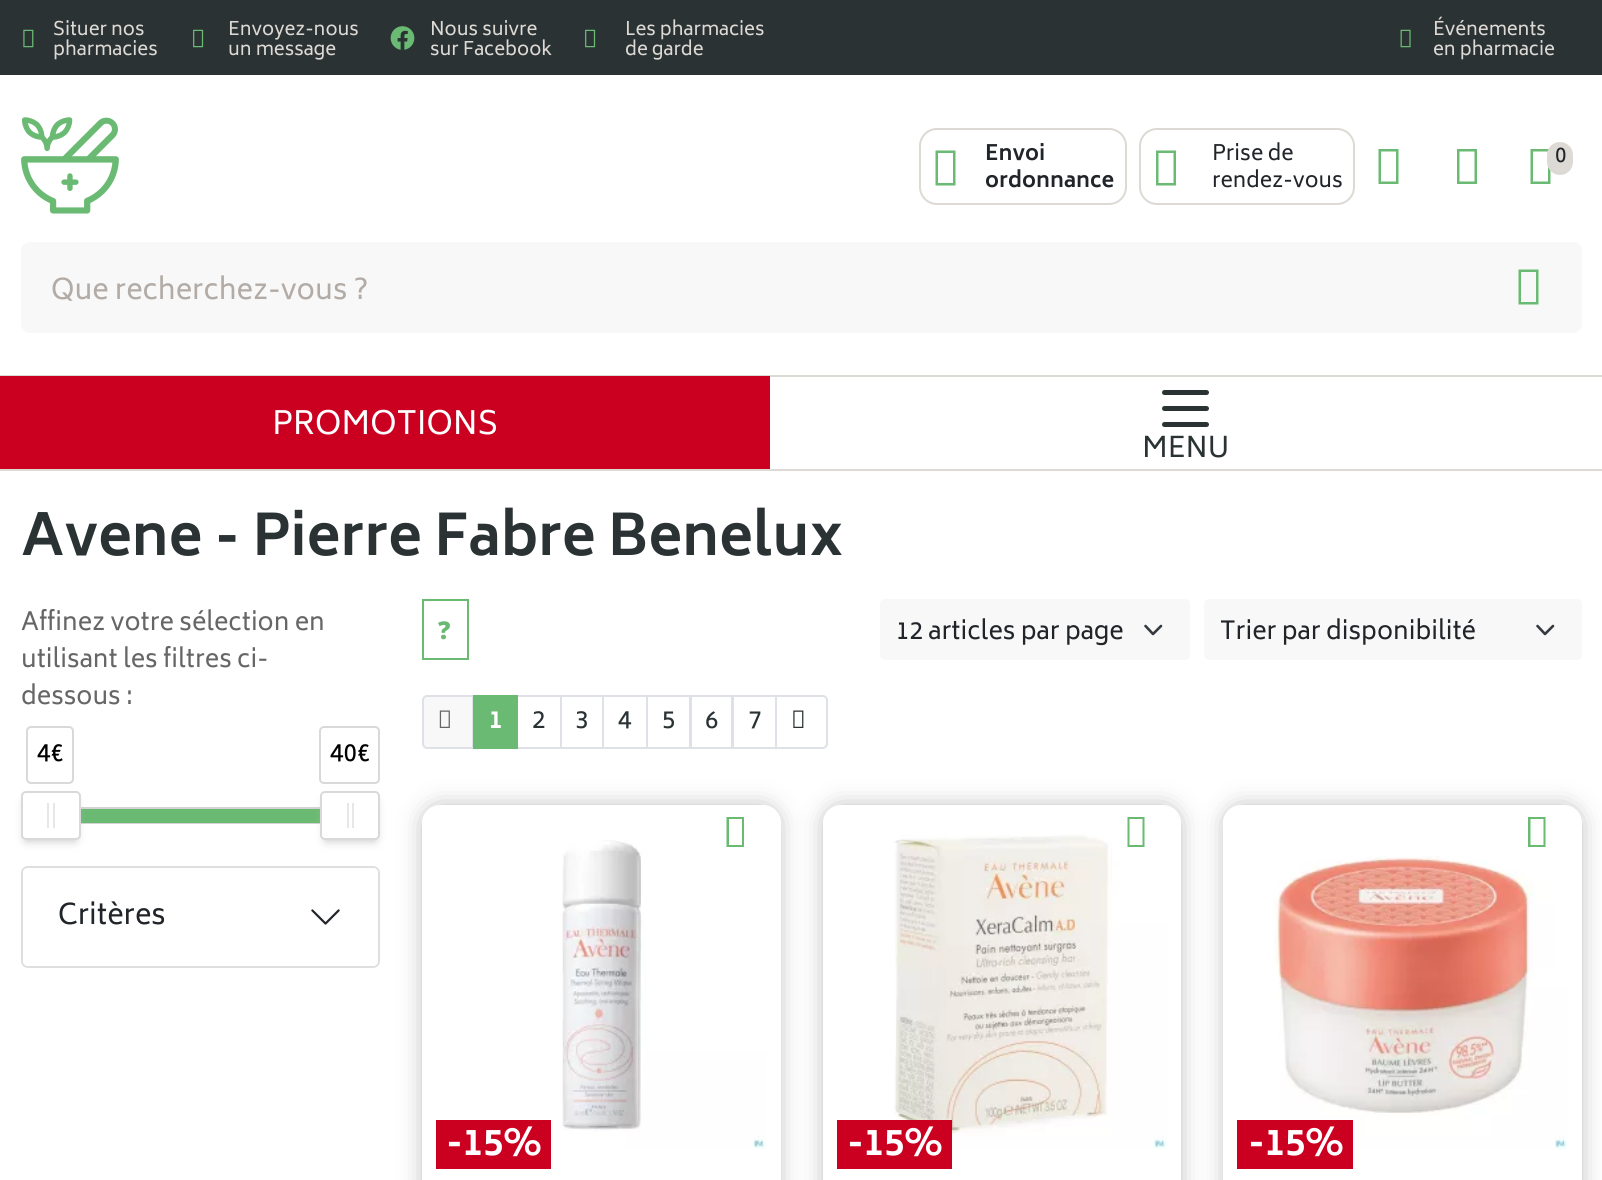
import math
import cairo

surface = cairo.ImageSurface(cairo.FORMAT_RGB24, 1602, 1180)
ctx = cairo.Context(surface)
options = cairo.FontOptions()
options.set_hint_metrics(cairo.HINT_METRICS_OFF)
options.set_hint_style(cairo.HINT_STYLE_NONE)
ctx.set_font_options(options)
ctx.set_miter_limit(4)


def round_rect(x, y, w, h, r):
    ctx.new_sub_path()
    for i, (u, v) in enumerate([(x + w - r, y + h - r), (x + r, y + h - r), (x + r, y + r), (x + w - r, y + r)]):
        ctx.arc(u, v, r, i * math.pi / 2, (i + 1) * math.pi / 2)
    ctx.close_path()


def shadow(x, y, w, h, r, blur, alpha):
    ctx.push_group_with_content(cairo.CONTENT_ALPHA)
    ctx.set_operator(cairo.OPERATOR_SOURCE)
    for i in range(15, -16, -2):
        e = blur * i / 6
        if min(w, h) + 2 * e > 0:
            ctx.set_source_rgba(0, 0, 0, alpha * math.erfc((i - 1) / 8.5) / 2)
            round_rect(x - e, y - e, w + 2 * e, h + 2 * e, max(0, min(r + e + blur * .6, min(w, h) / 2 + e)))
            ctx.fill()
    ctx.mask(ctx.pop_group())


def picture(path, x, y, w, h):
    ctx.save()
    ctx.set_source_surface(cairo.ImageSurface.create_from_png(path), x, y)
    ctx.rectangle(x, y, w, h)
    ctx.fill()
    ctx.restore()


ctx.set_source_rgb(1, 1, 1)
ctx.paint()
ctx.set_source_rgb(0.165, 0.196, 0.204)
ctx.rectangle(0, 0, 1602, 75)
ctx.fill()
picture("img1.png", 23, 29, 11, 19)
ctx.select_font_face("Biryani")
ctx.set_font_size(18.5)
ctx.set_source_rgb(0.867, 0.851, 0.831)
ctx.move_to(53, 35)
ctx.show_text("Situer nos")
ctx.move_to(53, 55)
ctx.show_text("pharmacies")
picture("img2.png", 193, 29, 11, 19)
ctx.move_to(228, 35)
ctx.show_text("Envoyez-nous")
ctx.move_to(228, 55)
ctx.show_text("un message")
picture("img3.png", 390, 26, 25, 24)
ctx.move_to(430, 35)
ctx.show_text("Nous suivre")
ctx.move_to(430, 55)
ctx.show_text("sur Facebook")
picture("img2.png", 585, 29, 11, 19)
ctx.move_to(625, 35)
ctx.show_text("Les pharmacies")
ctx.move_to(625, 55)
ctx.show_text("de garde")
picture("img4.png", 1400, 29, 11, 19)
ctx.move_to(1433, 35)
ctx.show_text("Événements")
ctx.move_to(1433, 55)
ctx.show_text("en pharmacie")
picture("img5.png", 21, 117, 98, 97)
round_rect(920, 129, 206, 75, 17)
ctx.stroke()
ctx.set_source_rgb(0.416, 0.729, 0.451)
ctx.new_path()
ctx.move_to(935.5, 185.5)
ctx.line_to(935.5, 150.5)
ctx.line_to(955.5, 150.5)
ctx.line_to(955.5, 185.5)
ctx.close_path()
ctx.move_to(938, 183)
ctx.line_to(953, 183)
ctx.line_to(953, 153)
ctx.line_to(938, 153)
ctx.close_path()
ctx.fill()
ctx.select_font_face("Biryani", cairo.FONT_SLANT_NORMAL, cairo.FONT_WEIGHT_BOLD)
ctx.set_font_size(21)
ctx.set_source_rgb(0.129, 0.145, 0.161)
ctx.move_to(985, 160)
ctx.show_text("Envoi")
ctx.move_to(985, 187)
ctx.show_text("ordonnance")
round_rect(1140, 129, 214, 75, 17)
ctx.set_source_rgb(0.867, 0.851, 0.831)
ctx.stroke()
ctx.set_source_rgb(0.416, 0.729, 0.451)
ctx.new_path()
ctx.move_to(1156, 185.5)
ctx.line_to(1156, 150.5)
ctx.line_to(1176, 150.5)
ctx.line_to(1176, 185.5)
ctx.close_path()
ctx.move_to(1158.5, 183)
ctx.line_to(1173.5, 183)
ctx.line_to(1173.5, 153)
ctx.line_to(1158.5, 153)
ctx.close_path()
ctx.fill()
ctx.select_font_face("Biryani")
ctx.set_source_rgb(0.129, 0.145, 0.161)
ctx.move_to(1212, 160)
ctx.show_text("Prise de")
ctx.move_to(1212, 187)
ctx.show_text("rendez-vous")
ctx.set_source_rgb(0.416, 0.729, 0.451)
ctx.new_path()
ctx.move_to(1378.5, 184)
ctx.line_to(1378.5, 149)
ctx.line_to(1398.5, 149)
ctx.line_to(1398.5, 184)
ctx.close_path()
ctx.move_to(1381, 181.5)
ctx.line_to(1396, 181.5)
ctx.line_to(1396, 151.5)
ctx.line_to(1381, 151.5)
ctx.close_path()
ctx.fill()
ctx.new_path()
ctx.move_to(1457, 184)
ctx.line_to(1457, 149)
ctx.line_to(1477, 149)
ctx.line_to(1477, 184)
ctx.close_path()
ctx.move_to(1459.5, 181.5)
ctx.line_to(1474.5, 181.5)
ctx.line_to(1474.5, 151.5)
ctx.line_to(1459.5, 151.5)
ctx.close_path()
ctx.fill()
ctx.new_path()
ctx.move_to(1530.5, 184)
ctx.line_to(1530.5, 149)
ctx.line_to(1550.5, 149)
ctx.line_to(1550.5, 184)
ctx.close_path()
ctx.move_to(1533, 181.5)
ctx.line_to(1548, 181.5)
ctx.line_to(1548, 151.5)
ctx.line_to(1533, 151.5)
ctx.close_path()
ctx.fill()
ctx.set_source_rgb(0.867, 0.851, 0.831)
round_rect(1547, 142, 26, 33, 13)
ctx.fill()
ctx.set_source_rgb(0.129, 0.145, 0.161)
ctx.move_to(1555, 162)
ctx.show_text("0")
ctx.set_source_rgb(0.969, 0.969, 0.969)
ctx.new_path()
ctx.move_to(30, 243)
ctx.line_to(1495, 243)
ctx.line_to(1495, 332)
ctx.line_to(30, 332)
ctx.curve_to(25.5, 332, 22, 328.5, 22, 324)
ctx.line_to(22, 251)
ctx.curve_to(22, 246.5, 25.5, 243, 30, 243)
ctx.close_path()
ctx.fill_preserve()
ctx.stroke()
ctx.set_font_size(28)
ctx.set_source_rgb(0.698, 0.671, 0.651)
ctx.move_to(51, 299)
ctx.show_text("Que recherchez-vous ?")
ctx.set_source_rgb(0.969, 0.969, 0.969)
ctx.new_path()
ctx.move_to(1495, 242)
ctx.line_to(1573, 242)
ctx.curve_to(1578, 242, 1582, 246, 1582, 251)
ctx.line_to(1582, 324)
ctx.curve_to(1582, 329, 1578, 333, 1573, 333)
ctx.line_to(1495, 333)
ctx.close_path()
ctx.fill()
ctx.set_source_rgb(0.416, 0.729, 0.451)
ctx.new_path()
ctx.move_to(1518.5, 304.5)
ctx.line_to(1518.5, 269.5)
ctx.line_to(1538.5, 269.5)
ctx.line_to(1538.5, 304.5)
ctx.close_path()
ctx.move_to(1521, 302)
ctx.line_to(1536, 302)
ctx.line_to(1536, 272)
ctx.line_to(1521, 272)
ctx.close_path()
ctx.fill()
ctx.set_source_rgb(0.867, 0.851, 0.831)
ctx.rectangle(0, 375, 1602, 2)
ctx.fill()
ctx.rectangle(0, 469, 1602, 2)
ctx.fill()
ctx.set_source_rgb(0.796, 0, 0.129)
ctx.rectangle(0, 376, 770, 93)
ctx.fill()
ctx.set_font_size(31.5)
ctx.set_source_rgb(1, 1, 1)
ctx.move_to(272, 434)
ctx.show_text("PROMOTIONS")
ctx.set_source_rgb(0.165, 0.196, 0.204)
round_rect(1162, 390, 47, 5, 2.5)
ctx.fill()
round_rect(1162, 406, 47, 5, 2.5)
ctx.fill()
round_rect(1162, 422, 47, 5, 2.5)
ctx.fill()
ctx.set_font_size(28)
ctx.move_to(1142, 457)
ctx.show_text("MENU")
ctx.select_font_face("Biryani", cairo.FONT_SLANT_NORMAL, cairo.FONT_WEIGHT_BOLD)
ctx.set_font_size(56)
ctx.move_to(21, 555)
ctx.show_text("Avene - Pierre Fabre Benelux")
ctx.select_font_face("Biryani")
ctx.set_font_size(24.5)
ctx.set_source_rgb(0.4, 0.4, 0.4)
ctx.move_to(21, 630)
ctx.show_text("Affinez votre sélection en")
ctx.move_to(21, 667)
ctx.show_text("utilisant les filtres ci-")
ctx.move_to(21, 704)
ctx.show_text("dessous :")
ctx.rectangle(50, 808, 301, 15)
ctx.set_source_rgb(0.827, 0.827, 0.827)
ctx.stroke()
ctx.set_source_rgb(0.416, 0.729, 0.451)
ctx.rectangle(81, 809, 239, 14)
ctx.fill()
ctx.set_source_rgb(0.733, 0.733, 0.733)
shadow(26, 802, 49, 38, 0, 5, 1)
ctx.set_source_rgb(1, 1, 1)
round_rect(22, 792, 58, 47, 4)
ctx.fill_preserve()
ctx.set_source_rgb(0.851, 0.851, 0.851)
ctx.stroke()
round_rect(27, 727, 46, 56, 4)
ctx.stroke()
ctx.set_source_rgb(0, 0, 0)
ctx.move_to(37, 761)
ctx.show_text("4€")
ctx.set_source_rgb(0.91, 0.906, 0.902)
ctx.rectangle(47, 803, 2, 25)
ctx.fill()
ctx.rectangle(53, 803, 2, 25)
ctx.fill()
ctx.set_source_rgb(0.733, 0.733, 0.733)
shadow(326, 802, 49, 38, 0, 5, 1)
ctx.set_source_rgb(1, 1, 1)
round_rect(321, 792, 58, 47, 4)
ctx.fill_preserve()
ctx.set_source_rgb(0.851, 0.851, 0.851)
ctx.stroke()
round_rect(320, 727, 59, 56, 4)
ctx.stroke()
ctx.set_source_rgb(0, 0, 0)
ctx.move_to(330, 761)
ctx.show_text("40€")
ctx.set_source_rgb(0.91, 0.906, 0.902)
ctx.rectangle(347, 803, 2, 25)
ctx.fill()
ctx.rectangle(352, 803, 2, 25)
ctx.fill()
round_rect(22, 867, 357, 100, 6)
ctx.set_source_rgb(0.875, 0.875, 0.875)
ctx.stroke()
ctx.set_source_rgb(1, 1, 1)
round_rect(23, 868, 355, 98, 5)
ctx.fill()
ctx.set_font_size(28)
ctx.set_source_rgb(0.129, 0.145, 0.161)
ctx.move_to(58, 924)
ctx.show_text("Critères")
picture("img6.png", 311, 909, 29, 16)
ctx.rectangle(423, 600, 45, 59)
ctx.set_source_rgb(0.416, 0.729, 0.451)
ctx.stroke()
ctx.select_font_face("Noto Sans Black")
ctx.set_font_size(24.5)
ctx.move_to(438, 639)
ctx.show_text("?")
ctx.set_source_rgb(0.969, 0.969, 0.969)
round_rect(880, 599, 310, 61, 5)
ctx.fill()
ctx.new_path()
ctx.move_to(1145.5, 626)
ctx.line_to(1153, 634)
ctx.line_to(1161, 626)
ctx.set_source_rgb(0.204, 0.227, 0.251)
ctx.set_line_width(2.6)
ctx.set_line_cap(cairo.LINE_CAP_ROUND)
ctx.set_line_join(cairo.LINE_JOIN_ROUND)
ctx.stroke()
ctx.select_font_face("Biryani")
ctx.set_source_rgb(0.129, 0.145, 0.161)
ctx.move_to(896, 639)
ctx.show_text("12 articles par page")
ctx.set_source_rgb(0.969, 0.969, 0.969)
round_rect(1204, 599, 378, 61, 5)
ctx.fill()
ctx.new_path()
ctx.move_to(1537.5, 626)
ctx.line_to(1545, 634)
ctx.line_to(1553, 626)
ctx.set_source_rgb(0.204, 0.227, 0.251)
ctx.stroke()
ctx.set_source_rgb(0.129, 0.145, 0.161)
ctx.move_to(1220, 639)
ctx.show_text("Trier par disponibilité")
ctx.set_source_rgb(0.969, 0.969, 0.969)
ctx.new_path()
ctx.move_to(427, 696)
ctx.line_to(473, 696)
ctx.line_to(473, 748)
ctx.line_to(427, 748)
ctx.curve_to(425, 748, 423, 746, 423, 744)
ctx.line_to(423, 700)
ctx.curve_to(423, 698, 425, 696, 427, 696)
ctx.close_path()
ctx.fill_preserve()
ctx.set_source_rgb(0.871, 0.886, 0.902)
ctx.set_line_width(2)
ctx.set_line_cap(cairo.LINE_CAP_BUTT)
ctx.set_line_join(cairo.LINE_JOIN_MITER)
ctx.stroke()
picture("img7.png", 439, 710, 11, 18)
ctx.rectangle(517, 696, 44, 52)
ctx.stroke()
ctx.set_source_rgb(0.416, 0.729, 0.451)
ctx.rectangle(473, 695, 45, 54)
ctx.fill()
ctx.select_font_face("Biryani", cairo.FONT_SLANT_NORMAL, cairo.FONT_WEIGHT_BOLD)
ctx.set_source_rgb(1, 1, 1)
ctx.move_to(489, 728)
ctx.show_text("1")
ctx.select_font_face("Biryani")
ctx.set_source_rgb(0.165, 0.196, 0.204)
ctx.move_to(532, 728)
ctx.show_text("2")
ctx.rectangle(561, 696, 42, 52)
ctx.set_source_rgb(0.871, 0.886, 0.902)
ctx.stroke()
ctx.set_source_rgb(0.165, 0.196, 0.204)
ctx.move_to(575, 728)
ctx.show_text("3")
ctx.rectangle(603, 696, 44, 52)
ctx.set_source_rgb(0.871, 0.886, 0.902)
ctx.stroke()
ctx.set_source_rgb(0.165, 0.196, 0.204)
ctx.move_to(618, 728)
ctx.show_text("4")
ctx.rectangle(647, 696, 43, 52)
ctx.set_source_rgb(0.871, 0.886, 0.902)
ctx.stroke()
ctx.set_source_rgb(0.165, 0.196, 0.204)
ctx.move_to(662, 728)
ctx.show_text("5")
ctx.rectangle(691, 696, 41, 52)
ctx.set_source_rgb(0.871, 0.886, 0.902)
ctx.stroke()
ctx.set_source_rgb(0.165, 0.196, 0.204)
ctx.move_to(705, 728)
ctx.show_text("6")
ctx.rectangle(733, 696, 43, 52)
ctx.set_source_rgb(0.871, 0.886, 0.902)
ctx.stroke()
ctx.set_source_rgb(0.165, 0.196, 0.204)
ctx.move_to(748, 728)
ctx.show_text("7")
ctx.set_source_rgb(1, 1, 1)
ctx.new_path()
ctx.move_to(776, 696)
ctx.line_to(823, 696)
ctx.curve_to(825, 696, 827, 698, 827, 700)
ctx.line_to(827, 744)
ctx.curve_to(827, 746, 825, 748, 823, 748)
ctx.line_to(776, 748)
ctx.close_path()
ctx.fill_preserve()
ctx.set_source_rgb(0.871, 0.886, 0.902)
ctx.stroke()
picture("img8.png", 793, 710, 11, 18)
ctx.set_source_rgb(0.165, 0.196, 0.204)
shadow(427, 810, 348, 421, 12, 13, 0.44)
ctx.set_source_rgb(1, 1, 1)
round_rect(422, 805, 359, 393, 18)
ctx.fill()
picture("img9.png", 562, 840, 204, 309)
ctx.set_source_rgb(0.416, 0.729, 0.451)
ctx.new_path()
ctx.move_to(726.5, 847)
ctx.line_to(726.5, 817)
ctx.line_to(744, 817)
ctx.line_to(744, 847)
ctx.close_path()
ctx.move_to(729, 845)
ctx.line_to(742, 845)
ctx.line_to(742, 819)
ctx.line_to(729, 819)
ctx.close_path()
ctx.fill()
ctx.set_source_rgb(0.796, 0, 0.129)
ctx.rectangle(436, 1120, 115, 49)
ctx.fill()
ctx.select_font_face("Biryani", cairo.FONT_SLANT_NORMAL, cairo.FONT_WEIGHT_BOLD)
ctx.set_font_size(37)
ctx.set_source_rgb(1, 1, 1)
ctx.move_to(446, 1155)
ctx.show_text("-15%")
ctx.set_source_rgb(0.165, 0.196, 0.204)
shadow(828, 810, 348, 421, 12, 13, 0.44)
ctx.set_source_rgb(1, 1, 1)
round_rect(823, 805, 358, 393, 18)
ctx.fill()
picture("img10.png", 894, 834, 273, 315)
ctx.set_source_rgb(0.416, 0.729, 0.451)
ctx.new_path()
ctx.move_to(1127.5, 847)
ctx.line_to(1127.5, 817)
ctx.line_to(1144.5, 817)
ctx.line_to(1144.5, 847)
ctx.close_path()
ctx.move_to(1129.5, 845)
ctx.line_to(1142.5, 845)
ctx.line_to(1142.5, 819)
ctx.line_to(1129.5, 819)
ctx.close_path()
ctx.fill()
ctx.set_source_rgb(0.796, 0, 0.129)
ctx.rectangle(837, 1120, 115, 49)
ctx.fill()
ctx.set_source_rgb(1, 1, 1)
ctx.move_to(847, 1155)
ctx.show_text("-15%")
ctx.set_source_rgb(0.165, 0.196, 0.204)
shadow(1229, 810, 348, 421, 12, 13, 0.44)
ctx.set_source_rgb(1, 1, 1)
round_rect(1223, 805, 359, 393, 18)
ctx.fill()
ctx.set_source_rgb(0.416, 0.729, 0.451)
ctx.new_path()
ctx.move_to(1528, 847)
ctx.line_to(1528, 817)
ctx.line_to(1545.5, 817)
ctx.line_to(1545.5, 847)
ctx.close_path()
ctx.move_to(1530.5, 845)
ctx.line_to(1543.5, 845)
ctx.line_to(1543.5, 819)
ctx.line_to(1530.5, 819)
ctx.close_path()
ctx.fill()
picture("img11.png", 1274, 856, 293, 294)
ctx.set_source_rgb(0.796, 0, 0.129)
ctx.rectangle(1237, 1120, 116, 49)
ctx.fill()
ctx.set_source_rgb(1, 1, 1)
ctx.move_to(1248, 1155)
ctx.show_text("-15%")
surface.write_to_png("page.png")
